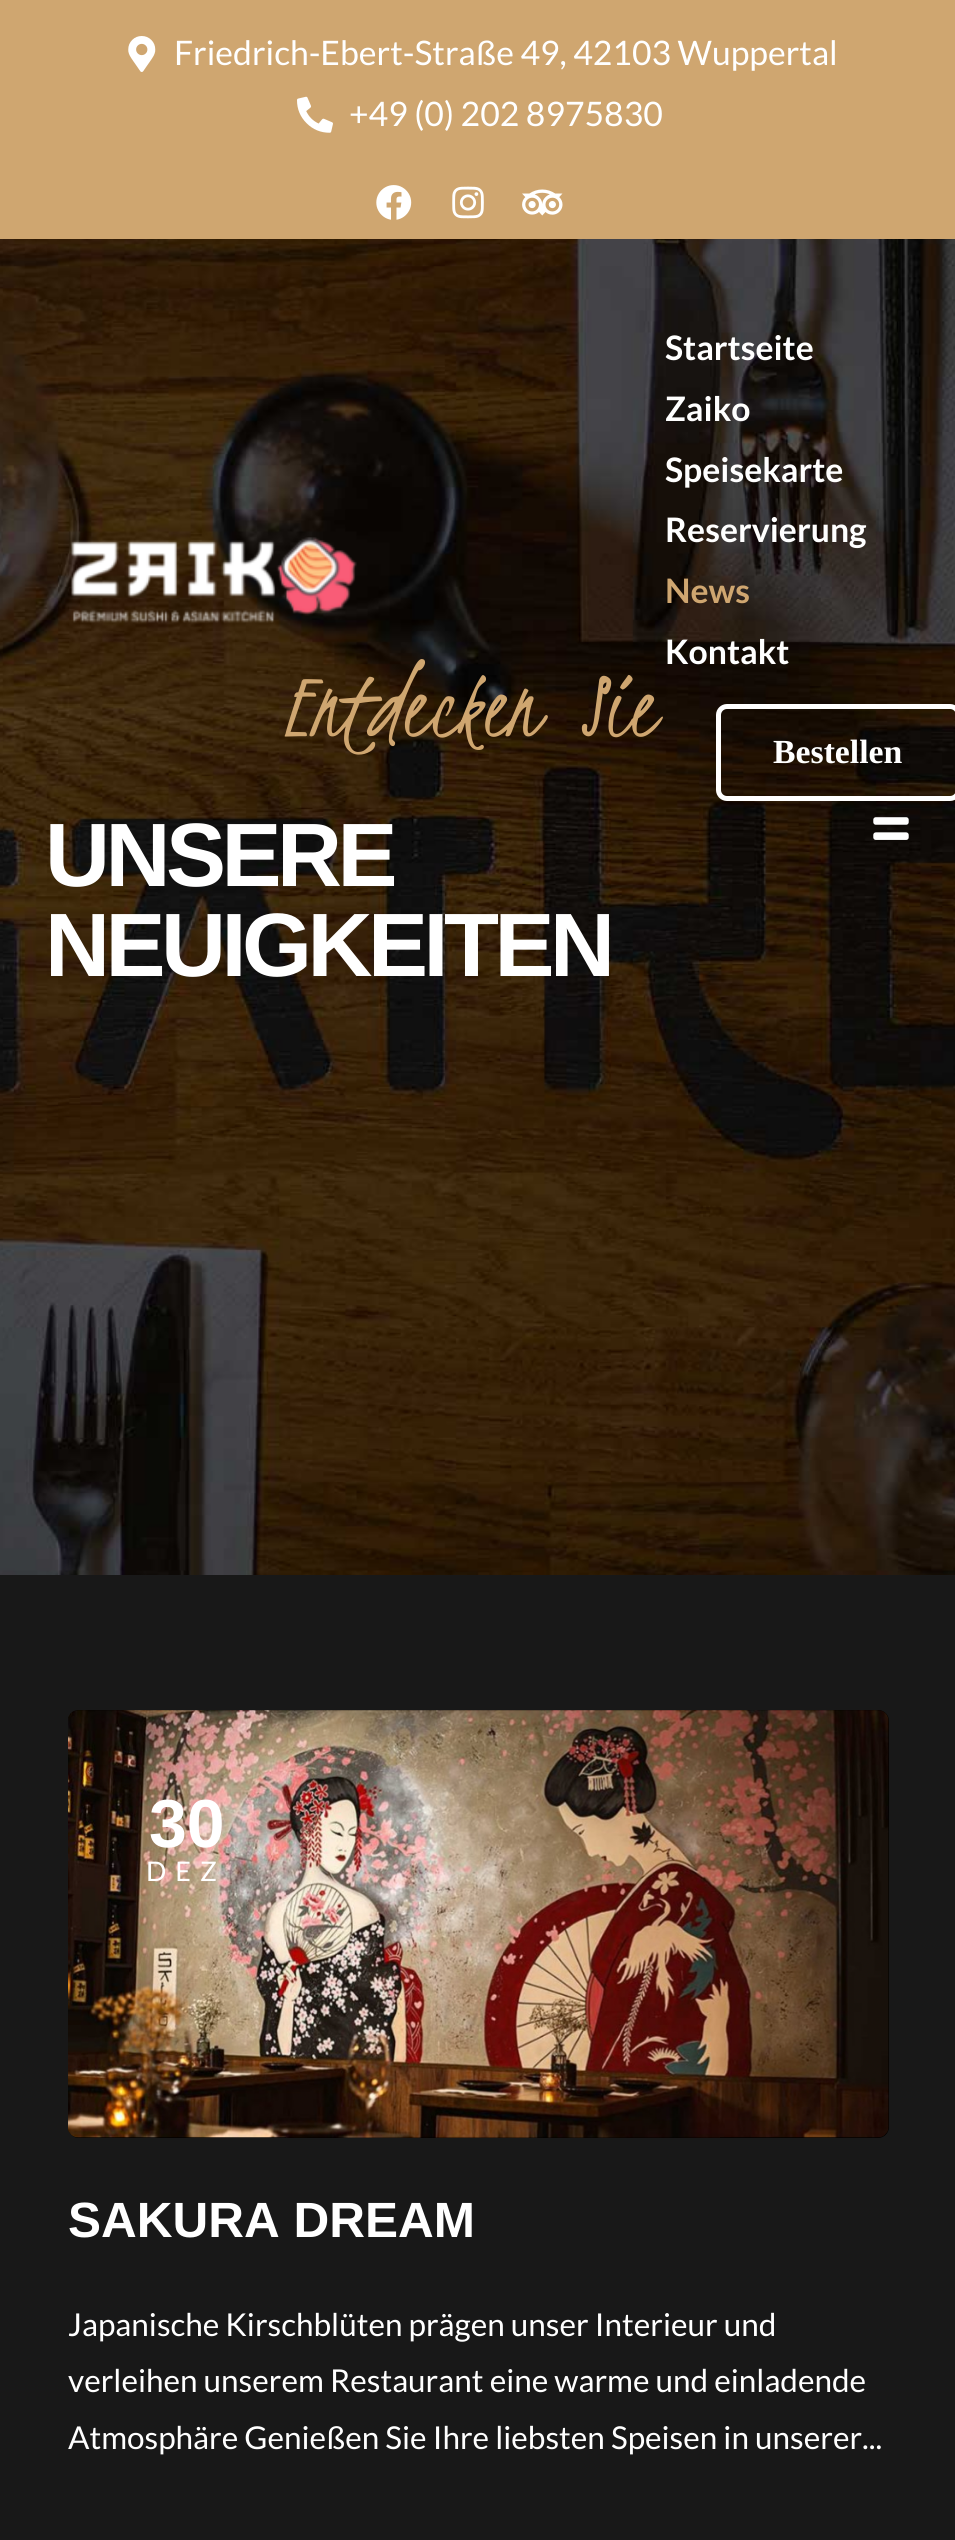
import math
import cairo

surface = cairo.ImageSurface(cairo.FORMAT_RGB24, 955, 2540)
ctx = cairo.Context(surface)
options = cairo.FontOptions()
options.set_hint_metrics(cairo.HINT_METRICS_OFF)
options.set_hint_style(cairo.HINT_STYLE_NONE)
ctx.set_font_options(options)
ctx.set_miter_limit(4)


def spaced_text(x, y, s, letter, word):
    ctx.move_to(x, y)
    for ch in s:
        ctx.show_text(ch)
        ctx.rel_move_to(letter + word * (ch == ' '), 0)


def round_rect(x, y, w, h, r):
    ctx.new_sub_path()
    for i, (u, v) in enumerate([(x + w - r, y + h - r), (x + r, y + h - r), (x + r, y + r), (x + w - r, y + r)]):
        ctx.arc(u, v, r, i * math.pi / 2, (i + 1) * math.pi / 2)
    ctx.close_path()


def picture(path, x, y, w, h):
    ctx.save()
    ctx.set_source_surface(cairo.ImageSurface.create_from_png(path), x, y)
    ctx.rectangle(x, y, w, h)
    ctx.fill()
    ctx.restore()


ctx.set_source_rgb(0.094, 0.094, 0.094)
ctx.paint()
ctx.set_source_rgb(0.812, 0.651, 0.439)
ctx.rectangle(0, 0, 955, 239)
ctx.fill()
picture("img1.png", 128, 36, 28, 36)
ctx.select_font_face("Lato")
ctx.set_font_size(33.75)
ctx.set_source_rgb(1, 1, 1)
ctx.move_to(174, 65)
ctx.show_text("Friedrich-Ebert-Straße 49, 42103 Wuppertal")
picture("img2.png", 297, 96, 36, 37)
ctx.move_to(349, 126)
ctx.show_text("+49 (0) 202 8975830")
picture("img3.png", 376, 185, 36, 35)
picture("img4.png", 452, 186, 32, 33)
picture("img5.png", 522, 189, 41, 27)
picture("img8.png", 0, 239, 955, 1336)
picture("img6.png", 71, 537, 286, 86)
ctx.select_font_face("Lato", cairo.FONT_SLANT_NORMAL, cairo.FONT_WEIGHT_BOLD)
ctx.move_to(665, 360)
ctx.show_text("Startseite")
ctx.move_to(665, 421)
ctx.show_text("Zaiko")
ctx.move_to(665, 482)
ctx.show_text("Speisekarte")
ctx.move_to(665, 542)
ctx.show_text("Reservierung")
ctx.set_source_rgb(0.812, 0.651, 0.439)
ctx.move_to(665, 603)
ctx.show_text("News")
ctx.set_source_rgb(1, 1, 1)
ctx.move_to(665, 664)
ctx.show_text("Kontakt")
round_rect(718.5, 706.5, 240, 92, 8.5)
ctx.set_line_width(5)
ctx.stroke()
ctx.select_font_face("Liberation Serif", cairo.FONT_SLANT_NORMAL, cairo.FONT_WEIGHT_BOLD)
ctx.move_to(773, 763)
ctx.show_text("Bestellen")
picture("img7.png", 873, 817, 36, 23)
ctx.select_font_face("Kristi")
ctx.set_font_size(101)
ctx.set_source_rgb(0.812, 0.651, 0.439)
ctx.move_to(283, 735)
ctx.show_text("Entdecken")
ctx.move_to(582, 735)
ctx.show_text("Sie")
ctx.select_font_face("Liberation Sans", cairo.FONT_SLANT_NORMAL, cairo.FONT_WEIGHT_BOLD)
ctx.set_font_size(90)
ctx.set_source_rgb(1, 1, 1)
spaced_text(45, 886, "UNSERE", -4.5, 0)
spaced_text(45, 976, "NEUIGKEITEN", -4.5, 0)
ctx.set_source_rgb(0, 0, 0)
round_rect(68, 1710, 821, 428, 11)
ctx.fill()
picture("img9.png", 68, 1710, 821, 428)
ctx.set_font_size(68)
ctx.set_source_rgb(1, 1, 1)
ctx.move_to(149, 1847)
ctx.show_text("30")
ctx.select_font_face("Lato")
ctx.set_font_size(27)
spaced_text(146, 1881, "DEZ", 9, 0)
ctx.select_font_face("Liberation Sans", cairo.FONT_SLANT_NORMAL, cairo.FONT_WEIGHT_BOLD)
ctx.set_font_size(49.5)
ctx.move_to(68, 2237)
ctx.show_text("SAKURA DREAM")
ctx.select_font_face("Lato")
ctx.set_font_size(31.5)
ctx.move_to(68, 2336)
ctx.show_text("Japanische Kirschblüten prägen unser Interieur und")
ctx.move_to(68, 2392)
ctx.show_text("verleihen unserem Restaurant eine warme und einladende")
ctx.move_to(68, 2449)
ctx.show_text("Atmosphäre Genießen Sie Ihre liebsten Speisen in unserer...")
surface.write_to_png("page.png")
